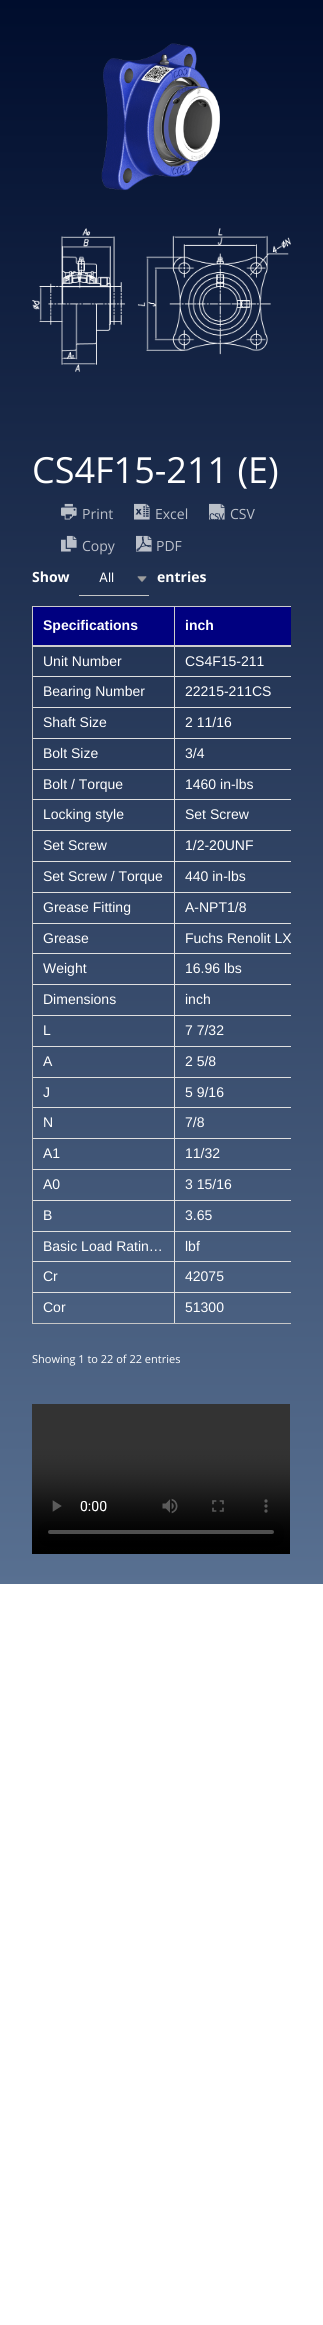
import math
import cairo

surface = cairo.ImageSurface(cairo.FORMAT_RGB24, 323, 2325)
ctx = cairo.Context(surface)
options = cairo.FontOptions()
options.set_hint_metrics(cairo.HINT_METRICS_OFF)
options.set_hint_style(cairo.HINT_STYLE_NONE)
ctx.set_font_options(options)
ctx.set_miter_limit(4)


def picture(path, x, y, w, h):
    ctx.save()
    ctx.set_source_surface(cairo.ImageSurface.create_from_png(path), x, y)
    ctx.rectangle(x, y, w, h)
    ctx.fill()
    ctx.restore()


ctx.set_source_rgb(1, 1, 1)
ctx.paint()
gradient = cairo.LinearGradient(161, 0, 162, 1584)
gradient.add_color_stop_rgba(0, 0, 0.051, 0.176, 1)
gradient.add_color_stop_rgba(1, 0.345, 0.439, 0.569, 1)
ctx.set_source(gradient)
ctx.rectangle(0, 0, 323, 1584)
ctx.fill()
picture("img1.png", 101, 43, 119, 148)
picture("img2.png", 32, 228, 259, 144)
ctx.select_font_face("Open Sans")
ctx.set_font_size(36)
ctx.set_source_rgb(1, 1, 1)
ctx.move_to(32, 483)
ctx.show_text("CS4F15-211 (E)")
picture("img3.png", 61, 503, 16, 17)
ctx.set_font_size(14)
ctx.set_source_rgb(0.733, 0.753, 0.792)
ctx.move_to(82, 519)
ctx.show_text("Print")
picture("img4.png", 134, 503, 16, 17)
ctx.move_to(155, 519)
ctx.show_text("Excel")
picture("img5.png", 209, 503, 16, 17)
ctx.move_to(230, 519)
ctx.show_text("CSV")
picture("img6.png", 61, 535, 16, 17)
ctx.move_to(82, 551)
ctx.show_text("Copy")
picture("img7.png", 136, 535, 16, 17)
ctx.move_to(156, 551)
ctx.show_text("PDF")
ctx.select_font_face("Open Sans", cairo.FONT_SLANT_NORMAL, cairo.FONT_WEIGHT_BOLD)
ctx.set_source_rgb(1, 1, 1)
ctx.move_to(32, 582)
ctx.show_text("Show")
ctx.set_source_rgb(0.769, 0.773, 0.776)
ctx.rectangle(79, 595, 70, 1)
ctx.fill()
ctx.select_font_face("Inter")
ctx.set_font_size(13)
ctx.set_source_rgb(1, 1, 1)
ctx.move_to(99, 582)
ctx.show_text("All")
picture("img8.png", 137, 576, 10, 6)
ctx.select_font_face("Open Sans", cairo.FONT_SLANT_NORMAL, cairo.FONT_WEIGHT_BOLD)
ctx.set_font_size(14)
ctx.move_to(157, 582)
ctx.show_text("entries")
ctx.set_source_rgb(0, 0, 0.502)
ctx.rectangle(33, 607, 258, 38)
ctx.fill()
ctx.set_source_rgb(0.8, 0.8, 0.8)
ctx.rectangle(174, 606, 117, 1)
ctx.fill()
ctx.set_source_rgb(0.878, 0.878, 0.878)
ctx.rectangle(174, 676, 117, 1)
ctx.fill()
ctx.rectangle(174, 707, 117, 1)
ctx.fill()
ctx.rectangle(174, 738, 117, 1)
ctx.fill()
ctx.rectangle(174, 769, 117, 1)
ctx.fill()
ctx.rectangle(174, 799, 117, 1)
ctx.fill()
ctx.rectangle(174, 830, 117, 1)
ctx.fill()
ctx.rectangle(174, 861, 117, 1)
ctx.fill()
ctx.rectangle(174, 892, 117, 1)
ctx.fill()
ctx.rectangle(174, 923, 117, 1)
ctx.fill()
ctx.rectangle(174, 953, 117, 1)
ctx.fill()
ctx.rectangle(174, 984, 117, 1)
ctx.fill()
ctx.rectangle(174, 1015, 117, 1)
ctx.fill()
ctx.rectangle(174, 1046, 117, 1)
ctx.fill()
ctx.rectangle(174, 1077, 117, 1)
ctx.fill()
ctx.rectangle(174, 1107, 117, 1)
ctx.fill()
ctx.rectangle(174, 1138, 117, 1)
ctx.fill()
ctx.rectangle(174, 1169, 117, 1)
ctx.fill()
ctx.rectangle(174, 1200, 117, 1)
ctx.fill()
ctx.rectangle(174, 1231, 117, 1)
ctx.fill()
ctx.rectangle(174, 1261, 117, 1)
ctx.fill()
ctx.rectangle(174, 1292, 117, 1)
ctx.fill()
ctx.set_source_rgb(0.776, 0.776, 0.776)
ctx.rectangle(174, 1323, 117, 1)
ctx.fill()
ctx.set_source_rgb(0.878, 0.878, 0.878)
ctx.rectangle(174, 1292, 1, 32)
ctx.fill()
ctx.rectangle(174, 1261, 1, 32)
ctx.fill()
ctx.rectangle(174, 1231, 1, 31)
ctx.fill()
ctx.rectangle(174, 1200, 1, 32)
ctx.fill()
ctx.rectangle(174, 1169, 1, 32)
ctx.fill()
ctx.rectangle(174, 1138, 1, 32)
ctx.fill()
ctx.rectangle(174, 1107, 1, 32)
ctx.fill()
ctx.rectangle(174, 1077, 1, 31)
ctx.fill()
ctx.rectangle(174, 1046, 1, 32)
ctx.fill()
ctx.rectangle(174, 1015, 1, 32)
ctx.fill()
ctx.rectangle(174, 984, 1, 32)
ctx.fill()
ctx.rectangle(174, 953, 1, 32)
ctx.fill()
ctx.rectangle(174, 923, 1, 31)
ctx.fill()
ctx.rectangle(174, 892, 1, 32)
ctx.fill()
ctx.rectangle(174, 861, 1, 32)
ctx.fill()
ctx.rectangle(174, 830, 1, 32)
ctx.fill()
ctx.rectangle(174, 799, 1, 32)
ctx.fill()
ctx.rectangle(174, 769, 1, 31)
ctx.fill()
ctx.rectangle(174, 738, 1, 32)
ctx.fill()
ctx.rectangle(174, 707, 1, 32)
ctx.fill()
ctx.rectangle(174, 645, 1, 63)
ctx.fill()
ctx.set_source_rgb(0.8, 0.8, 0.8)
ctx.rectangle(174, 606, 1, 40)
ctx.fill()
ctx.rectangle(32, 606, 143, 1)
ctx.fill()
ctx.set_source_rgb(0.776, 0.776, 0.776)
ctx.rectangle(32, 1323, 143, 1)
ctx.fill()
ctx.rectangle(32, 1292, 1, 32)
ctx.fill()
ctx.set_source_rgb(0.878, 0.878, 0.878)
ctx.rectangle(32, 1292, 143, 1)
ctx.fill()
ctx.set_source_rgb(0.776, 0.776, 0.776)
ctx.rectangle(32, 1261, 1, 32)
ctx.fill()
ctx.set_source_rgb(0.878, 0.878, 0.878)
ctx.rectangle(32, 1261, 143, 1)
ctx.fill()
ctx.set_source_rgb(0.776, 0.776, 0.776)
ctx.rectangle(32, 1231, 1, 31)
ctx.fill()
ctx.set_source_rgb(0.878, 0.878, 0.878)
ctx.rectangle(32, 1231, 143, 1)
ctx.fill()
ctx.set_source_rgb(0.776, 0.776, 0.776)
ctx.rectangle(32, 1200, 1, 32)
ctx.fill()
ctx.set_source_rgb(0.878, 0.878, 0.878)
ctx.rectangle(32, 1200, 143, 1)
ctx.fill()
ctx.set_source_rgb(0.776, 0.776, 0.776)
ctx.rectangle(32, 1169, 1, 32)
ctx.fill()
ctx.set_source_rgb(0.878, 0.878, 0.878)
ctx.rectangle(32, 1169, 143, 1)
ctx.fill()
ctx.set_source_rgb(0.776, 0.776, 0.776)
ctx.rectangle(32, 1138, 1, 32)
ctx.fill()
ctx.set_source_rgb(0.878, 0.878, 0.878)
ctx.rectangle(32, 1138, 143, 1)
ctx.fill()
ctx.set_source_rgb(0.776, 0.776, 0.776)
ctx.rectangle(32, 1107, 1, 32)
ctx.fill()
ctx.set_source_rgb(0.878, 0.878, 0.878)
ctx.rectangle(32, 1107, 143, 1)
ctx.fill()
ctx.set_source_rgb(0.776, 0.776, 0.776)
ctx.rectangle(32, 1077, 1, 31)
ctx.fill()
ctx.set_source_rgb(0.878, 0.878, 0.878)
ctx.rectangle(32, 1077, 143, 1)
ctx.fill()
ctx.set_source_rgb(0.776, 0.776, 0.776)
ctx.rectangle(32, 1046, 1, 32)
ctx.fill()
ctx.set_source_rgb(0.878, 0.878, 0.878)
ctx.rectangle(32, 1046, 143, 1)
ctx.fill()
ctx.set_source_rgb(0.776, 0.776, 0.776)
ctx.rectangle(32, 1015, 1, 32)
ctx.fill()
ctx.set_source_rgb(0.878, 0.878, 0.878)
ctx.rectangle(32, 1015, 143, 1)
ctx.fill()
ctx.set_source_rgb(0.776, 0.776, 0.776)
ctx.rectangle(32, 984, 1, 32)
ctx.fill()
ctx.set_source_rgb(0.878, 0.878, 0.878)
ctx.rectangle(32, 984, 143, 1)
ctx.fill()
ctx.set_source_rgb(0.776, 0.776, 0.776)
ctx.rectangle(32, 953, 1, 32)
ctx.fill()
ctx.set_source_rgb(0.878, 0.878, 0.878)
ctx.rectangle(32, 953, 143, 1)
ctx.fill()
ctx.set_source_rgb(0.776, 0.776, 0.776)
ctx.rectangle(32, 923, 1, 31)
ctx.fill()
ctx.set_source_rgb(0.878, 0.878, 0.878)
ctx.rectangle(32, 923, 143, 1)
ctx.fill()
ctx.set_source_rgb(0.776, 0.776, 0.776)
ctx.rectangle(32, 892, 1, 32)
ctx.fill()
ctx.set_source_rgb(0.878, 0.878, 0.878)
ctx.rectangle(32, 892, 143, 1)
ctx.fill()
ctx.set_source_rgb(0.776, 0.776, 0.776)
ctx.rectangle(32, 861, 1, 32)
ctx.fill()
ctx.set_source_rgb(0.878, 0.878, 0.878)
ctx.rectangle(32, 861, 143, 1)
ctx.fill()
ctx.set_source_rgb(0.776, 0.776, 0.776)
ctx.rectangle(32, 830, 1, 32)
ctx.fill()
ctx.set_source_rgb(0.878, 0.878, 0.878)
ctx.rectangle(32, 830, 143, 1)
ctx.fill()
ctx.set_source_rgb(0.776, 0.776, 0.776)
ctx.rectangle(32, 799, 1, 32)
ctx.fill()
ctx.set_source_rgb(0.878, 0.878, 0.878)
ctx.rectangle(32, 799, 143, 1)
ctx.fill()
ctx.set_source_rgb(0.776, 0.776, 0.776)
ctx.rectangle(32, 769, 1, 31)
ctx.fill()
ctx.set_source_rgb(0.878, 0.878, 0.878)
ctx.rectangle(32, 769, 143, 1)
ctx.fill()
ctx.set_source_rgb(0.776, 0.776, 0.776)
ctx.rectangle(32, 738, 1, 32)
ctx.fill()
ctx.set_source_rgb(0.878, 0.878, 0.878)
ctx.rectangle(32, 738, 143, 1)
ctx.fill()
ctx.set_source_rgb(0.776, 0.776, 0.776)
ctx.rectangle(32, 707, 1, 32)
ctx.fill()
ctx.set_source_rgb(0.878, 0.878, 0.878)
ctx.rectangle(32, 707, 143, 1)
ctx.fill()
ctx.set_source_rgb(0.776, 0.776, 0.776)
ctx.rectangle(32, 676, 1, 32)
ctx.fill()
ctx.set_source_rgb(0.878, 0.878, 0.878)
ctx.rectangle(32, 676, 143, 1)
ctx.fill()
ctx.set_source_rgb(0.776, 0.776, 0.776)
ctx.rectangle(32, 645, 1, 32)
ctx.fill()
ctx.set_source_rgb(0.8, 0.8, 0.8)
ctx.rectangle(32, 606, 1, 40)
ctx.fill()
ctx.select_font_face("Liberation Sans", cairo.FONT_SLANT_NORMAL, cairo.FONT_WEIGHT_BOLD)
ctx.set_source_rgb(1, 1, 1)
ctx.move_to(43, 630)
ctx.show_text("Specifications")
ctx.set_source_rgb(0.8, 0.8, 0.8)
ctx.rectangle(32, 645, 259, 2)
ctx.fill()
ctx.set_source_rgb(1, 1, 1)
ctx.move_to(185, 630)
ctx.show_text("inch")
ctx.select_font_face("Liberation Sans")
ctx.move_to(43, 666)
ctx.show_text("Unit Number")
ctx.move_to(185, 666)
ctx.show_text("CS4F15-211")
ctx.move_to(43, 696)
ctx.show_text("Bearing Number")
ctx.move_to(185, 696)
ctx.show_text("22215-211CS")
ctx.move_to(43, 727)
ctx.show_text("Shaft Size")
ctx.move_to(185, 727)
ctx.show_text("2 11/16")
ctx.move_to(43, 758)
ctx.show_text("Bolt Size")
ctx.move_to(185, 758)
ctx.show_text("3/4")
ctx.move_to(43, 789)
ctx.show_text("Bolt / Torque")
ctx.move_to(185, 789)
ctx.show_text("1460 in-lbs")
ctx.move_to(43, 819)
ctx.show_text("Locking style")
ctx.move_to(185, 819)
ctx.show_text("Set Screw")
ctx.move_to(43, 850)
ctx.show_text("Set Screw")
ctx.move_to(185, 850)
ctx.show_text("1/2-20UNF")
ctx.move_to(43, 881)
ctx.show_text("Set Screw / Torque")
ctx.move_to(185, 881)
ctx.show_text("440 in-lbs")
ctx.move_to(43, 912)
ctx.show_text("Grease Fitting")
ctx.move_to(185, 912)
ctx.show_text("A-NPT1/8")
ctx.move_to(43, 943)
ctx.show_text("Grease")
ctx.move_to(185, 943)
ctx.show_text("Fuchs Renolit LX")
ctx.move_to(43, 973)
ctx.show_text("Weight")
ctx.move_to(185, 973)
ctx.show_text("16.96 lbs")
ctx.move_to(43, 1004)
ctx.show_text("Dimensions")
ctx.move_to(185, 1004)
ctx.show_text("inch")
ctx.move_to(43, 1035)
ctx.show_text("L")
ctx.move_to(185, 1035)
ctx.show_text("7 7/32")
ctx.move_to(43, 1066)
ctx.show_text("A")
ctx.move_to(185, 1066)
ctx.show_text("2 5/8")
ctx.move_to(43, 1097)
ctx.show_text("J")
ctx.move_to(185, 1097)
ctx.show_text("5 9/16")
ctx.move_to(43, 1127)
ctx.show_text("N")
ctx.move_to(185, 1127)
ctx.show_text("7/8")
ctx.move_to(43, 1158)
ctx.show_text("A1")
ctx.move_to(185, 1158)
ctx.show_text("11/32")
ctx.move_to(43, 1189)
ctx.show_text("A0")
ctx.move_to(185, 1189)
ctx.show_text("3 15/16")
ctx.move_to(43, 1220)
ctx.show_text("B")
ctx.move_to(185, 1220)
ctx.show_text("3.65")
ctx.move_to(43, 1251)
ctx.show_text("Basic Load Ratin…")
ctx.move_to(185, 1251)
ctx.show_text("lbf")
ctx.move_to(43, 1281)
ctx.show_text("Cr")
ctx.move_to(185, 1281)
ctx.show_text("42075")
ctx.move_to(43, 1312)
ctx.show_text("Cor")
ctx.move_to(185, 1312)
ctx.show_text("51300")
ctx.select_font_face("Open Sans")
ctx.set_font_size(11)
ctx.move_to(32, 1363)
ctx.show_text("Showing 1 to 22 of 22 entries")
picture("img9.png", 32, 1404, 258, 150)
surface.write_to_png("page.png")
